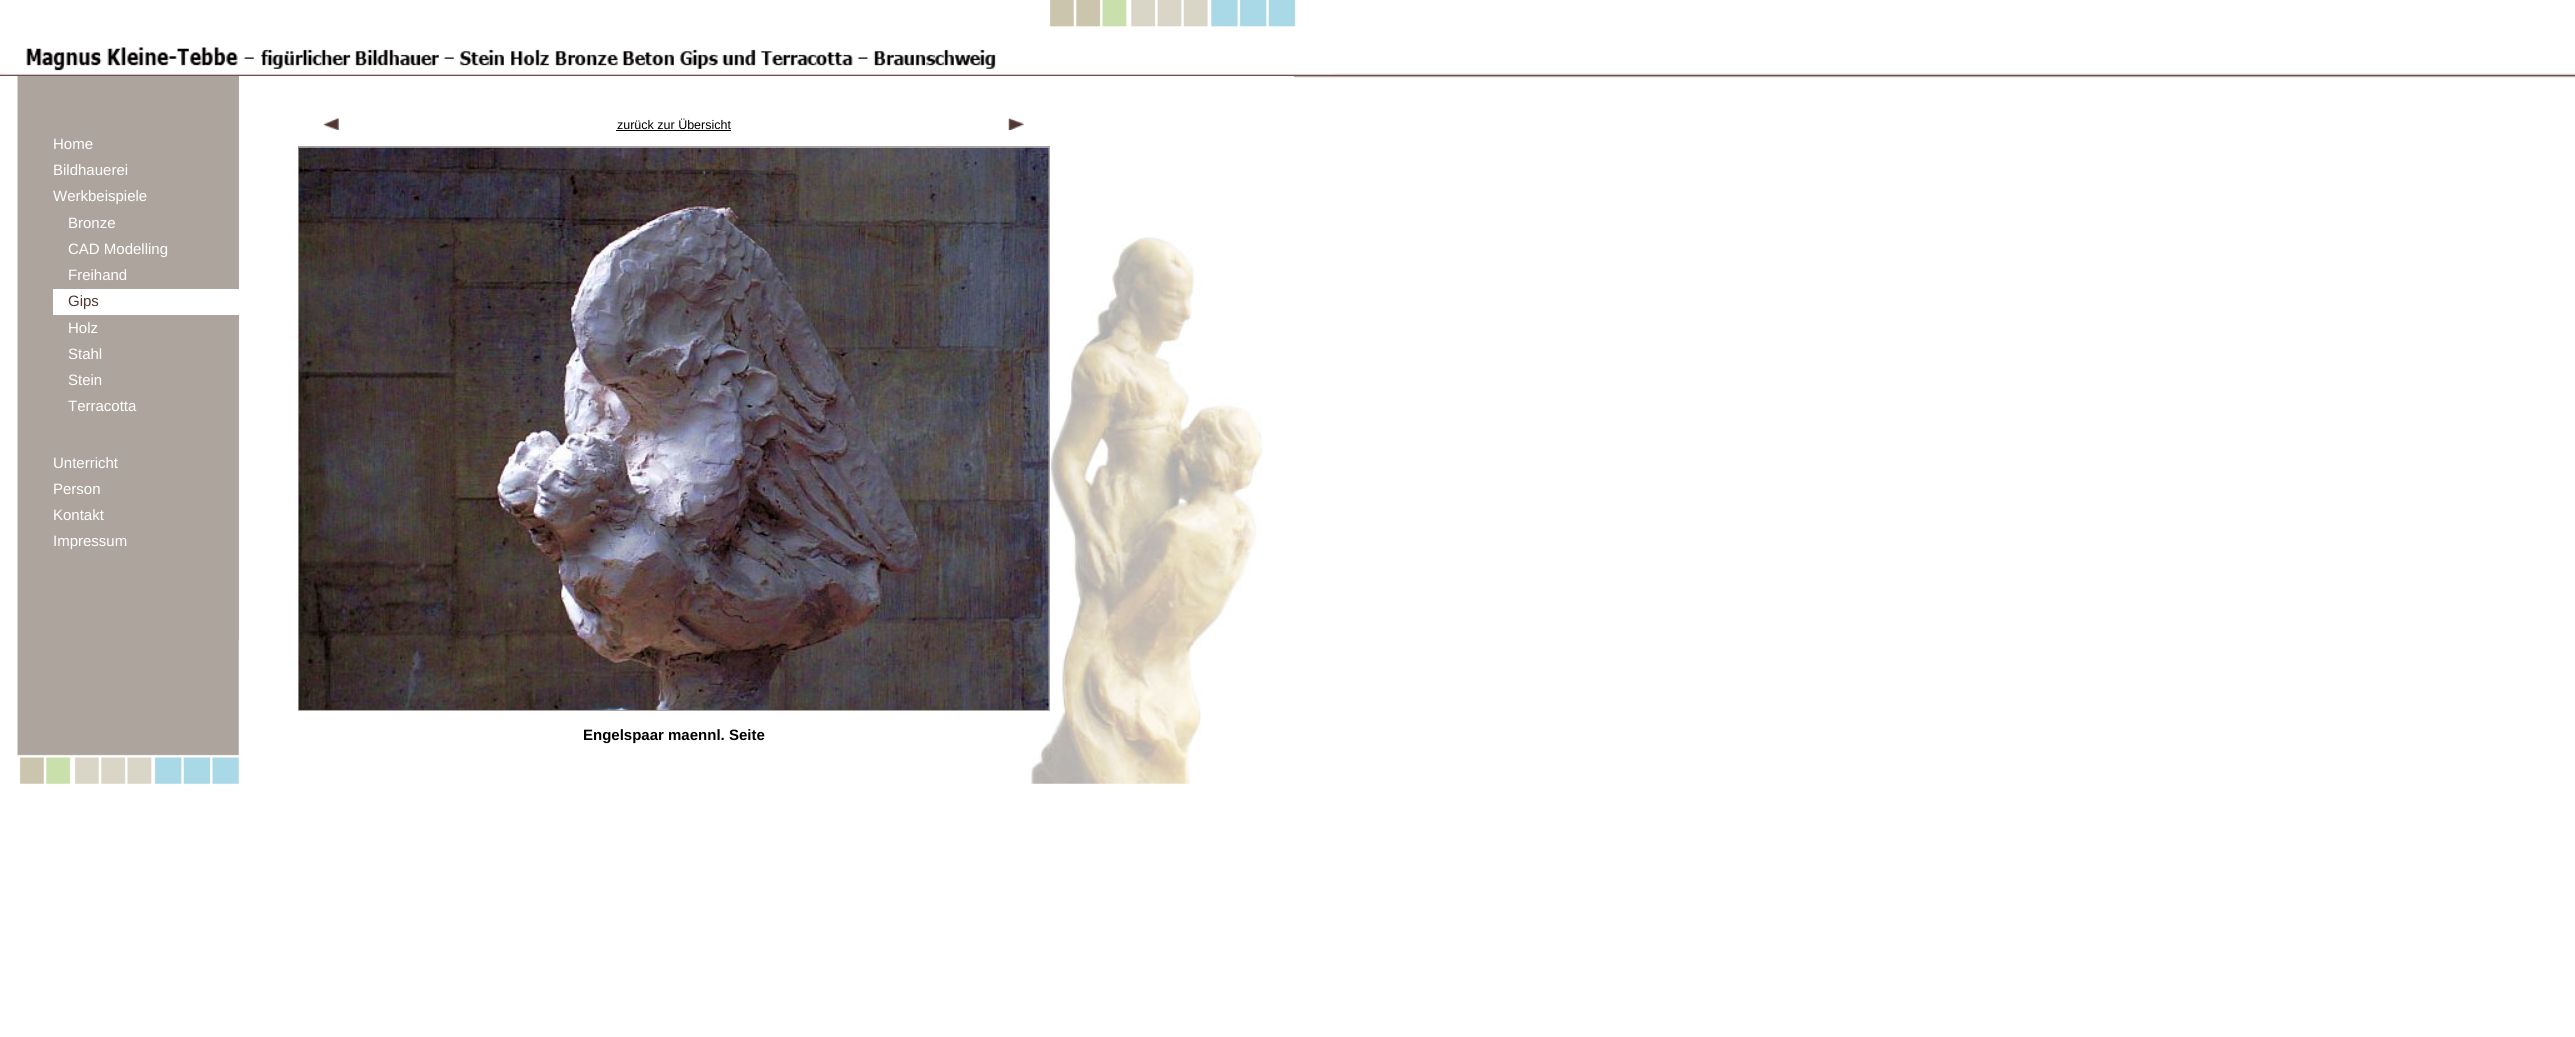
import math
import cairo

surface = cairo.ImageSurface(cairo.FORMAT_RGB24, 2575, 1037)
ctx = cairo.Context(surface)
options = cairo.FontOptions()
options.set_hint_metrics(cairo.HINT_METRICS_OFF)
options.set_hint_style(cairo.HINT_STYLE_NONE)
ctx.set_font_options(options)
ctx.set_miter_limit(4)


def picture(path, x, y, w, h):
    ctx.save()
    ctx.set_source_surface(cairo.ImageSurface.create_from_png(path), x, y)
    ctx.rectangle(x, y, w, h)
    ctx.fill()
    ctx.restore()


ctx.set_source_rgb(1, 1, 1)
ctx.paint()
picture("img1.png", 0, 73, 2575, 5)
picture("img2.png", 6, 0, 1328, 74)
ctx.set_source_rgb(1, 1, 1)
ctx.rectangle(0, 76, 1294, 2)
ctx.fill()
picture("img3.png", 17, 76, 222, 708)
ctx.set_source_rgb(0.678, 0.647, 0.616)
ctx.rectangle(18, 76, 221, 564)
ctx.fill()
ctx.select_font_face("Liberation Sans")
ctx.set_font_size(15)
ctx.set_source_rgb(1, 1, 1)
ctx.move_to(53, 149)
ctx.show_text("Home")
ctx.move_to(53, 175)
ctx.show_text("Bildhauerei")
ctx.move_to(53, 201)
ctx.show_text("Werkbeispiele")
ctx.move_to(68, 228)
ctx.show_text("Bronze")
ctx.move_to(68, 254)
ctx.show_text("CAD Modelling")
ctx.move_to(68, 280)
ctx.show_text("Freihand")
ctx.rectangle(53, 289, 186, 26)
ctx.fill()
ctx.set_source_rgb(0.318, 0.216, 0.204)
ctx.move_to(68, 306)
ctx.show_text("Gips")
ctx.set_source_rgb(1, 1, 1)
ctx.move_to(68, 333)
ctx.show_text("Holz")
ctx.move_to(68, 359)
ctx.show_text("Stahl")
ctx.move_to(68, 385)
ctx.show_text("Stein")
ctx.move_to(68, 411)
ctx.show_text("Terracotta")
ctx.move_to(53, 468)
ctx.show_text("Unterricht")
ctx.move_to(53, 494)
ctx.show_text("Person")
ctx.move_to(53, 520)
ctx.show_text("Kontakt")
ctx.move_to(53, 546)
ctx.show_text("Impressum")
picture("img4.png", 1030, 237, 233, 547)
picture("img5.png", 323, 117, 16, 13)
ctx.set_font_size(12.5)
ctx.set_source_rgb(0, 0, 0)
ctx.move_to(617, 129)
ctx.show_text("zurück zur Übersicht")
ctx.rectangle(616, 130, 115, 1)
ctx.fill()
picture("img6.png", 1008, 118, 16, 12)
ctx.rectangle(298.5, 146.5, 751, 564)
ctx.set_source_rgb(0.678, 0.647, 0.616)
ctx.set_line_width(1)
ctx.stroke()
picture("img7.png", 298, 147, 751, 563)
ctx.select_font_face("Liberation Sans", cairo.FONT_SLANT_NORMAL, cairo.FONT_WEIGHT_BOLD)
ctx.set_font_size(15)
ctx.set_source_rgb(0, 0, 0)
ctx.move_to(583, 740)
ctx.show_text("Engelspaar maennl. Seite")
surface.write_to_png("page.png")
